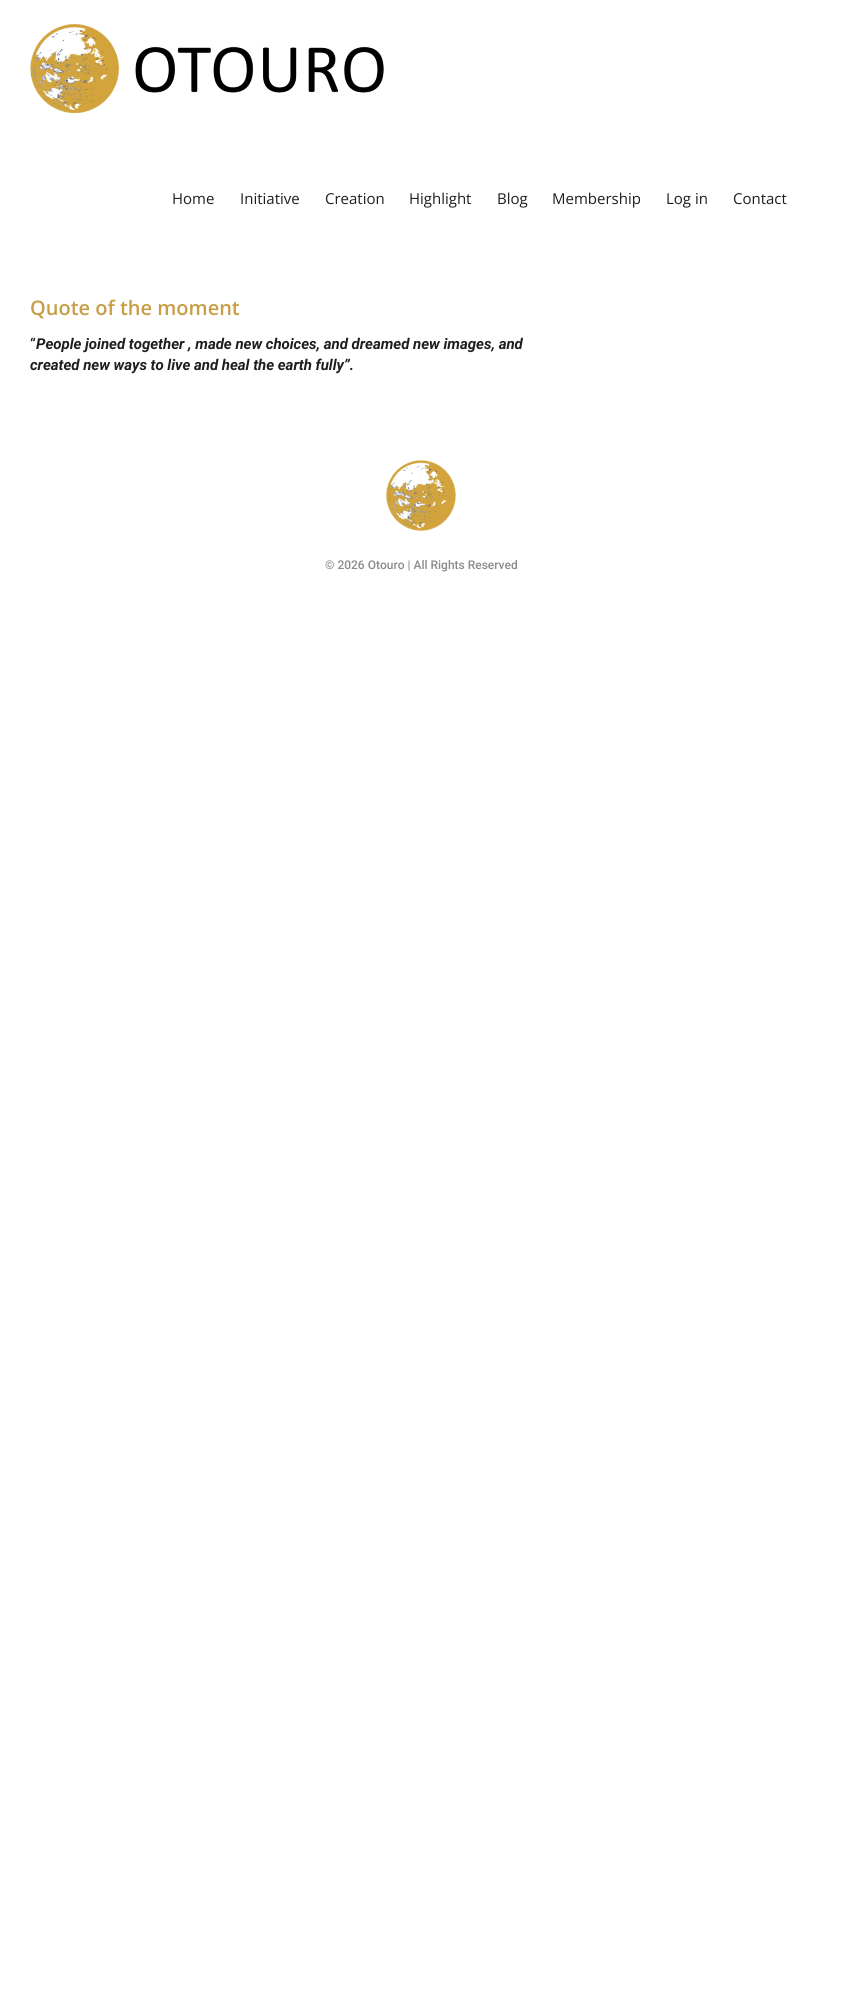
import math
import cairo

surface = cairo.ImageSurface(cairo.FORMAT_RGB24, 842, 2011)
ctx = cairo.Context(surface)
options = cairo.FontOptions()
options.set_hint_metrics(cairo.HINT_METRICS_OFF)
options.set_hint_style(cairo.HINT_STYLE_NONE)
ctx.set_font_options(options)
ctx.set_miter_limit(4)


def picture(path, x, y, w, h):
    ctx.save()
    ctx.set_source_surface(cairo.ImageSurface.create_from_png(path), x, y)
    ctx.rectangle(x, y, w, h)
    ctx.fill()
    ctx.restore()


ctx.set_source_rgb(1, 1, 1)
ctx.paint()
picture("img1.png", 30, 23, 354, 91)
ctx.select_font_face("Open Sans")
ctx.set_font_size(15)
ctx.set_source_rgb(0.118, 0.118, 0.118)
ctx.move_to(172, 204)
ctx.show_text("Home")
ctx.move_to(240, 204)
ctx.show_text("Initiative")
ctx.move_to(325, 204)
ctx.show_text("Creation")
ctx.move_to(409, 204)
ctx.show_text("Highlight")
ctx.move_to(497, 204)
ctx.show_text("Blog")
ctx.move_to(552, 204)
ctx.show_text("Membership")
ctx.move_to(666, 204)
ctx.show_text("Log in")
ctx.move_to(733, 204)
ctx.show_text("Contact")
ctx.select_font_face("Open Sans SemiBold")
ctx.set_font_size(20)
ctx.set_source_rgb(0.784, 0.62, 0.271)
ctx.move_to(30, 315)
ctx.show_text("Quote of the moment")
ctx.select_font_face("Roboto Medium")
ctx.set_font_size(15)
ctx.set_source_rgb(0.118, 0.118, 0.118)
ctx.move_to(30, 349)
ctx.show_text("“")
ctx.select_font_face("Roboto", cairo.FONT_SLANT_ITALIC, cairo.FONT_WEIGHT_BOLD)
ctx.move_to(36, 349)
ctx.show_text("People joined together , made new choices, and dreamed new images, and")
ctx.move_to(30, 370)
ctx.show_text("created new ways to live and heal the earth fully”.")
picture("img2.png", 386, 460, 70, 71)
ctx.select_font_face("Roboto Medium")
ctx.set_font_size(12)
ctx.set_source_rgb(0.549, 0.537, 0.537)
ctx.move_to(325, 569)
ctx.show_text("© 2026 Otouro | All Rights Reserved")
surface.write_to_png("page.png")
